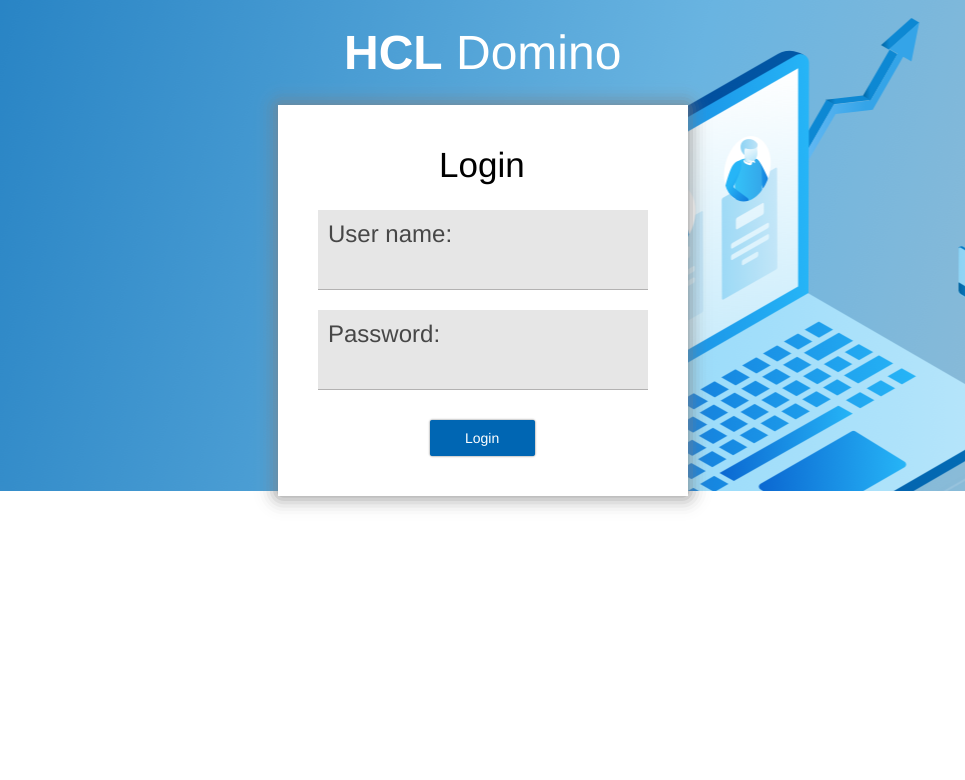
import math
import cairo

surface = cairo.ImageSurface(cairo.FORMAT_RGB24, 965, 780)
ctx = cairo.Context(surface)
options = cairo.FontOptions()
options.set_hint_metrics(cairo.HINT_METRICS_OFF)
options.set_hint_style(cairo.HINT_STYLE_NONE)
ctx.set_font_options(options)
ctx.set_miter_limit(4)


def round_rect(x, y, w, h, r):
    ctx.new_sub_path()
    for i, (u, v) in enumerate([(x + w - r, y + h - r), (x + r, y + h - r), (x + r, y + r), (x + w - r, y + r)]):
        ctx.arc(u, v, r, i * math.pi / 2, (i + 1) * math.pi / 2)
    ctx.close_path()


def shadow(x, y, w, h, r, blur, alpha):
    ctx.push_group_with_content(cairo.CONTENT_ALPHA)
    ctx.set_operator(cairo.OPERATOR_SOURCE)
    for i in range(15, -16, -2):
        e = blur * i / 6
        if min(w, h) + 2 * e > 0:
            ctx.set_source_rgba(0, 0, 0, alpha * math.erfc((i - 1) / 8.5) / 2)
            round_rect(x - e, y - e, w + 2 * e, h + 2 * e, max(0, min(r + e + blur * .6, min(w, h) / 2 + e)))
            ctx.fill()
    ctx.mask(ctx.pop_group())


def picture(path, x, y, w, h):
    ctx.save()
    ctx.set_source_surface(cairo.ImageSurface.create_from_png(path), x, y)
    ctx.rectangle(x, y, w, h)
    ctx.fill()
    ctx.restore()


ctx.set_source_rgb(1, 1, 1)
ctx.paint()
picture("img1.png", 0, 0, 965, 491)
ctx.select_font_face("Liberation Sans", cairo.FONT_SLANT_NORMAL, cairo.FONT_WEIGHT_BOLD)
ctx.set_font_size(48)
ctx.set_source_rgb(1, 1, 1)
ctx.move_to(344, 69)
ctx.show_text("HCL")
ctx.select_font_face("Liberation Sans")
ctx.move_to(456, 69)
ctx.show_text("Domino")
ctx.set_source_rgb(0.502, 0.502, 0.502)
shadow(278, 105, 410, 391, 0, 10, 1)
ctx.set_source_rgb(1, 1, 1)
ctx.rectangle(278, 105, 410, 391)
ctx.fill()
ctx.set_font_size(35)
ctx.set_source_rgb(0, 0, 0)
ctx.move_to(439, 177)
ctx.show_text("Login")
ctx.set_source_rgb(0.902, 0.902, 0.902)
ctx.rectangle(318, 210, 330, 79)
ctx.fill()
ctx.set_source_rgb(0.702, 0.698, 0.698)
ctx.rectangle(318, 289, 330, 1)
ctx.fill()
ctx.set_font_size(24)
ctx.set_source_rgb(0.278, 0.278, 0.278)
ctx.move_to(328, 242)
ctx.show_text("User name:")
ctx.set_source_rgb(0.902, 0.902, 0.902)
ctx.rectangle(318, 310, 330, 79)
ctx.fill()
ctx.set_source_rgb(0.702, 0.698, 0.698)
ctx.rectangle(318, 389, 330, 1)
ctx.fill()
ctx.set_source_rgb(0.278, 0.278, 0.278)
ctx.move_to(328, 342)
ctx.show_text("Password:")
ctx.set_source_rgb(0.502, 0.502, 0.502)
shadow(430, 420, 105, 36, 2, 1, 1)
ctx.set_source_rgb(0, 0.4, 0.702)
round_rect(430, 420, 105, 36, 2)
ctx.fill()
ctx.set_font_size(14)
ctx.set_source_rgb(1, 1, 1)
ctx.move_to(465, 443)
ctx.show_text("Login")
surface.write_to_png("page.png")
